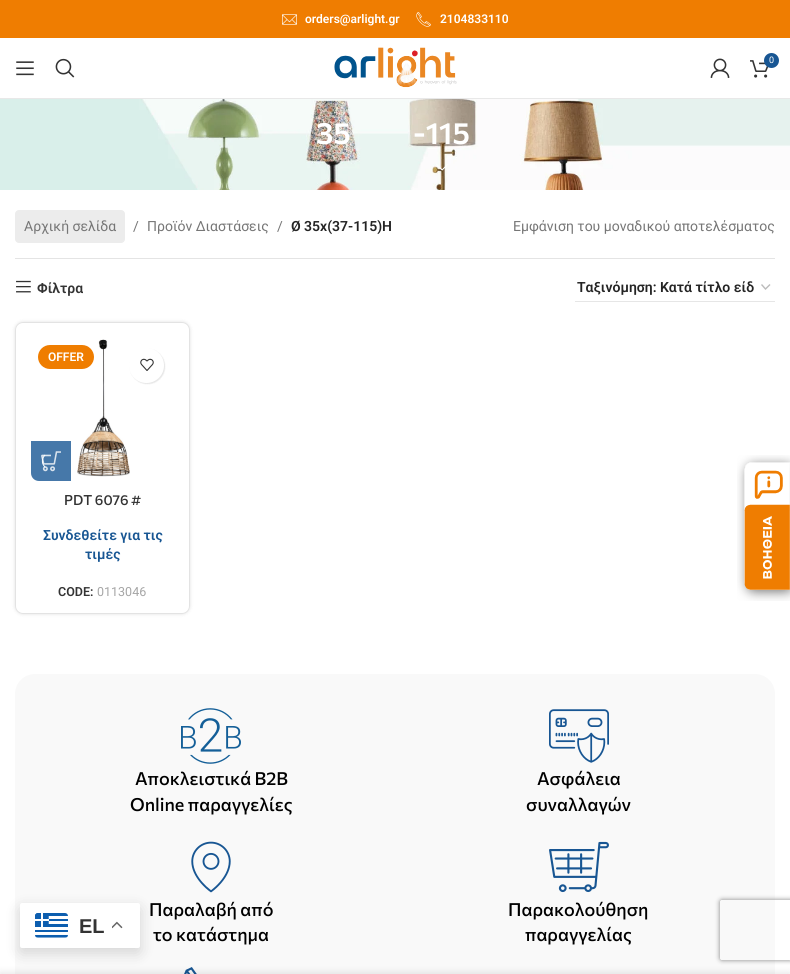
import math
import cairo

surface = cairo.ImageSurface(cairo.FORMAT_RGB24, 790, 974)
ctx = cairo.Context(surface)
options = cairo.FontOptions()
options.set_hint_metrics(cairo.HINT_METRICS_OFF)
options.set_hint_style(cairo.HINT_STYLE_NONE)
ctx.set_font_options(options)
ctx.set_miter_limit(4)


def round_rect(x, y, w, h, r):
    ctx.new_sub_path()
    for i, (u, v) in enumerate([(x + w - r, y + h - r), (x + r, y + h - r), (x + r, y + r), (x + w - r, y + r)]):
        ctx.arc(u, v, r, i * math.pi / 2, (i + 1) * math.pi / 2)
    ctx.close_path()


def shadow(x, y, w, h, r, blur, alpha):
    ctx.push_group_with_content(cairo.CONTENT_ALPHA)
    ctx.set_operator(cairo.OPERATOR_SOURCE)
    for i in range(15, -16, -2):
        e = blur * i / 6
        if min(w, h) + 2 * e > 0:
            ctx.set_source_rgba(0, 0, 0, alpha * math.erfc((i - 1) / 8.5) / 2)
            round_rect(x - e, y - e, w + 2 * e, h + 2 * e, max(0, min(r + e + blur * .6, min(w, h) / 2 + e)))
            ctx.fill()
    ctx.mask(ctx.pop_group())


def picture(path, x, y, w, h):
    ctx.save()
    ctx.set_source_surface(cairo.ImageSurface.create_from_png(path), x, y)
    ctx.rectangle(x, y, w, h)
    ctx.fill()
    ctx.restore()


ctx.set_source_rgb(1, 1, 1)
ctx.paint()
ctx.set_source_rgb(0.937, 0.49, 0.004)
ctx.rectangle(0, 0, 790, 38)
ctx.fill()
picture("img1.png", 282, 14, 15, 11)
ctx.select_font_face("Roboto SemiBold")
ctx.set_font_size(12)
ctx.set_source_rgb(1, 1, 1)
ctx.move_to(305, 23)
ctx.show_text("orders@arlight.gr")
picture("img2.png", 416, 12, 15, 15)
ctx.move_to(440, 23)
ctx.show_text("2104833110")
ctx.set_source_rgb(0.91, 0.91, 0.91)
ctx.rectangle(0, 98, 790, 1)
ctx.fill()
picture("img3.png", 16, 61, 18, 15)
picture("img4.png", 55, 58, 20, 20)
picture("img5.png", 334, 47, 123, 41)
picture("img6.png", 710, 58, 20, 20)
picture("img7.png", 750, 60, 19, 18)
ctx.set_source_rgb(0.094, 0.337, 0.576)
ctx.arc(771.5, 60.5, 7.5, 0, 2 * math.pi)
ctx.fill()
ctx.select_font_face("Roboto")
ctx.set_font_size(9)
ctx.set_source_rgb(1, 1, 1)
ctx.move_to(769, 63)
ctx.show_text("0")
picture("img8.png", 0, 99, 790, 91)
ctx.select_font_face("Commissioner SemiBold")
ctx.set_font_size(30)
ctx.move_to(316, 144)
ctx.show_text("35")
ctx.move_to(413, 144)
ctx.show_text("-115")
picture("img9.png", 436, 164, 12, 7)
ctx.set_source_rgb(0.894, 0.894, 0.894)
ctx.rectangle(15, 258, 760, 1)
ctx.fill()
ctx.set_source_rgb(0.925, 0.925, 0.925)
round_rect(15.5, 210.5, 109, 32, 3.5)
ctx.fill_preserve()
ctx.set_line_width(1)
ctx.stroke()
ctx.select_font_face("Roboto")
ctx.set_font_size(14)
ctx.set_source_rgb(0.463, 0.463, 0.463)
ctx.move_to(24, 231)
ctx.show_text("Αρχική σελίδα")
ctx.move_to(133, 231)
ctx.show_text("/")
ctx.move_to(147, 231)
ctx.show_text("Προϊόν Διαστάσεις")
ctx.move_to(277, 231)
ctx.show_text("/")
ctx.select_font_face("Roboto SemiBold")
ctx.set_source_rgb(0.141, 0.141, 0.141)
ctx.move_to(291, 231)
ctx.show_text("Ø 35x(37-115)H")
ctx.select_font_face("Roboto")
ctx.set_source_rgb(0.463, 0.463, 0.463)
ctx.move_to(513, 231)
ctx.show_text("Εμφάνιση του μοναδικού αποτελέσματος")
picture("img10.png", 16, 280, 15, 13)
ctx.select_font_face("Roboto SemiBold")
ctx.set_source_rgb(0.2, 0.2, 0.2)
ctx.move_to(37, 293)
ctx.show_text("Φίλτρα")
ctx.new_path()
ctx.move_to(761.5, 284.5)
ctx.line_to(765.5, 289)
ctx.line_to(770, 284.5)
ctx.set_source_rgb(0.733, 0.733, 0.733)
ctx.set_line_width(1.4)
ctx.stroke()
ctx.set_source_rgb(0.902, 0.902, 0.902)
ctx.rectangle(575, 301, 200, 1)
ctx.fill()
ctx.set_source_rgb(0.141, 0.141, 0.141)
ctx.move_to(577, 292)
ctx.show_text("Ταξινόμηση: Κατά τίτλο είδ")
ctx.save()
ctx.set_fill_rule(cairo.FILL_RULE_EVEN_ODD)
ctx.new_path()
ctx.move_to(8, 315)
ctx.line_to(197, 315)
ctx.line_to(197, 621)
ctx.line_to(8, 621)
ctx.close_path()
ctx.move_to(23, 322)
ctx.line_to(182, 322)
ctx.curve_to(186.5, 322, 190, 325.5, 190, 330)
ctx.line_to(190, 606)
ctx.curve_to(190, 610.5, 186.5, 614, 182, 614)
ctx.line_to(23, 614)
ctx.curve_to(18.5, 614, 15, 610.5, 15, 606)
ctx.line_to(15, 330)
ctx.curve_to(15, 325.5, 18.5, 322, 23, 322)
ctx.close_path()
ctx.clip()
ctx.set_source_rgb(0, 0, 0)
shadow(15, 322, 175, 292, 8, 2, 0.12)
ctx.restore()
round_rect(15.5, 322.5, 174, 291, 7.5)
ctx.set_source_rgba(0, 0, 0, 0.11)
ctx.set_line_width(1)
ctx.stroke()
picture("img11.png", 77, 339, 53, 138)
ctx.set_source_rgb(0.937, 0.49, 0)
round_rect(38, 345, 56, 24, 12)
ctx.fill()
ctx.set_font_size(12)
ctx.set_source_rgb(1, 1, 1)
ctx.move_to(48, 361)
ctx.show_text("OFFER")
ctx.set_source_rgb(0, 0, 0)
shadow(130, 349, 35, 35, 17.5, 0.5, 0.1)
ctx.set_source_rgb(1, 1, 1)
ctx.arc(146.5, 365.5, 17.5, 0, 2 * math.pi)
ctx.fill()
picture("img12.png", 140, 358, 14, 13)
ctx.set_source_rgb(0.275, 0.471, 0.663)
ctx.new_path()
ctx.move_to(31, 441)
ctx.line_to(71, 441)
ctx.line_to(71, 481)
ctx.line_to(39, 481)
ctx.curve_to(34.5, 481, 31, 477.5, 31, 473)
ctx.close_path()
ctx.fill()
picture("img13.png", 41, 451, 20, 21)
ctx.new_path()
ctx.move_to(45, 467)
ctx.curve_to(41.5, 463.5, 41.5, 458.5, 45, 455)
ctx.set_source_rgb(1, 1, 1)
ctx.stroke()
ctx.select_font_face("Commissioner Medium")
ctx.set_font_size(14)
ctx.set_source_rgb(0.2, 0.2, 0.2)
ctx.move_to(64, 505)
ctx.show_text("PDT 6076 #")
ctx.select_font_face("Roboto SemiBold")
ctx.set_source_rgb(0.094, 0.337, 0.576)
ctx.move_to(43, 540)
ctx.show_text("Συνδεθείτε για τις")
ctx.move_to(85, 559)
ctx.show_text("τιμές")
ctx.set_font_size(12.5)
ctx.set_source_rgb(0.2, 0.2, 0.2)
ctx.move_to(58, 596)
ctx.show_text("CODE:")
ctx.select_font_face("Roboto")
ctx.set_source_rgb(0.647, 0.647, 0.647)
ctx.move_to(97, 596)
ctx.show_text("0113046")
ctx.set_source_rgb(0.976, 0.976, 0.976)
round_rect(15, 674, 760, 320, 20)
ctx.fill()
picture("img14.png", 181, 708, 60, 56)
ctx.select_font_face("Commissioner Medium")
ctx.set_font_size(18)
ctx.set_source_rgb(0, 0, 0)
ctx.move_to(135, 785)
ctx.show_text("Αποκλειστικά B2B")
ctx.move_to(130, 811)
ctx.show_text("Online παραγγελίες")
picture("img15.png", 549, 709, 60, 54)
ctx.move_to(537, 785)
ctx.show_text("Ασφάλεια")
ctx.move_to(526, 811)
ctx.show_text("συναλλαγών")
picture("img16.png", 191, 841, 40, 52)
ctx.move_to(149, 916)
ctx.show_text("Παραλαβή από")
ctx.move_to(153, 941)
ctx.show_text("το κατάστημα")
picture("img17.png", 549, 841, 60, 52)
ctx.move_to(508, 916)
ctx.show_text("Παρακολούθηση")
ctx.move_to(525, 941)
ctx.show_text("παραγγελίας")
picture("img18.png", 184, 967, 13, 7)
picture("img19.png", 737, 455, 53, 146)
ctx.save()
ctx.set_fill_rule(cairo.FILL_RULE_EVEN_ODD)
ctx.new_path()
ctx.move_to(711, 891)
ctx.line_to(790, 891)
ctx.line_to(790, 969)
ctx.line_to(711, 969)
ctx.close_path()
ctx.move_to(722, 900)
ctx.line_to(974, 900)
ctx.curve_to(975, 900, 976, 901, 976, 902)
ctx.line_to(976, 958)
ctx.curve_to(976, 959, 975, 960, 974, 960)
ctx.line_to(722, 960)
ctx.curve_to(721, 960, 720, 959, 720, 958)
ctx.line_to(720, 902)
ctx.curve_to(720, 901, 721, 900, 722, 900)
ctx.close_path()
ctx.clip()
ctx.set_source_rgb(0.502, 0.502, 0.502)
shadow(720, 900, 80, 60, 2, 2.5, 1)
ctx.restore()
ctx.set_source_rgb(0, 0, 0)
shadow(20, 908, 120, 45, 2, 7.5, 0.15)
ctx.set_source_rgb(1, 1, 1)
round_rect(20, 903, 120, 45, 2)
ctx.fill()
picture("img20.png", 35, 913, 33, 25)
ctx.select_font_face("Liberation Sans", cairo.FONT_SLANT_NORMAL, cairo.FONT_WEIGHT_BOLD)
ctx.set_font_size(20)
ctx.set_source_rgb(0.2, 0.2, 0.2)
ctx.move_to(79, 933)
ctx.show_text("EL")
picture("img21.png", 112, 921, 11, 8)
ctx.set_source_rgb(1, 1, 1)
round_rect(778, 922, 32, 40, 20)
ctx.fill()
ctx.set_source_rgb(0, 0, 0)
shadow(0, 974, 790, 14, 0, 4.5, 0.14)
surface.write_to_png("page.png")
